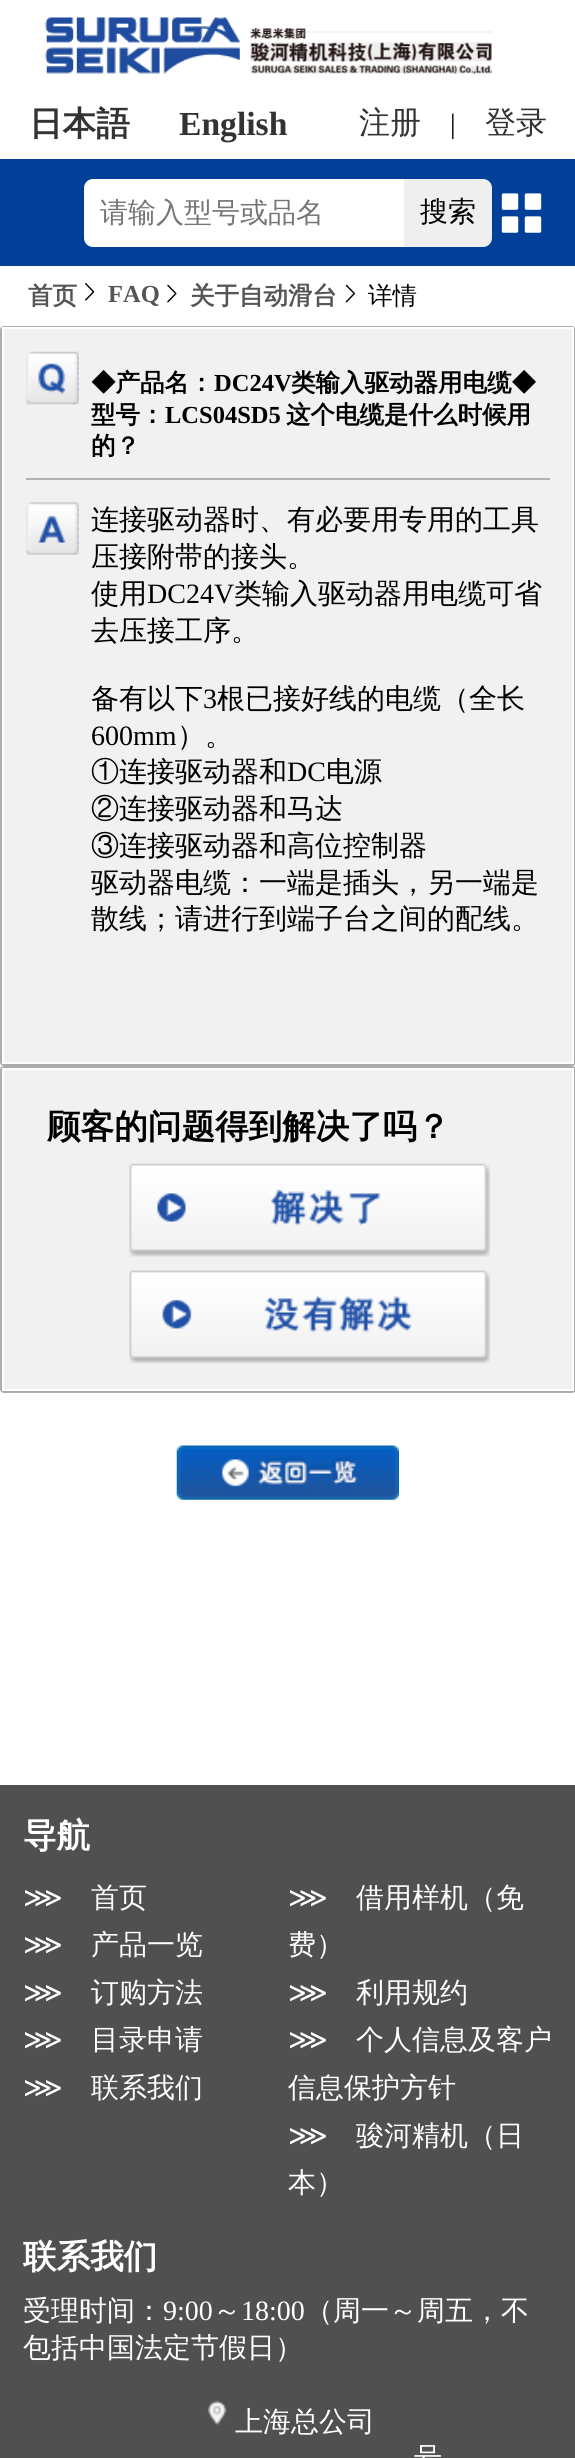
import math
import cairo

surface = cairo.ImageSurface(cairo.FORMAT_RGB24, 575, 2458)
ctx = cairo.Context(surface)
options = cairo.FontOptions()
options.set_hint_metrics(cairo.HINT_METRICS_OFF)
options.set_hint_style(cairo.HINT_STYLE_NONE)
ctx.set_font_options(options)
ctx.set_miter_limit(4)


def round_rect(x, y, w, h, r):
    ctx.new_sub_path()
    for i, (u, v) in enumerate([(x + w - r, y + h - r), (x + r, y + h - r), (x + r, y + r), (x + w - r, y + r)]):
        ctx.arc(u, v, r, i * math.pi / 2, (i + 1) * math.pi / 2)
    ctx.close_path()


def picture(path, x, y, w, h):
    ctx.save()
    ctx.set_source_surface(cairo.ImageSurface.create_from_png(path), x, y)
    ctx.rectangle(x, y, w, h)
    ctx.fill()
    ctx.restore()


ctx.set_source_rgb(1, 1, 1)
ctx.paint()
picture("img1.png", 45, 17, 195, 57)
picture("img2.png", 250, 28, 242, 46)
ctx.select_font_face("WenQuanYi Zen Hei", cairo.FONT_SLANT_NORMAL, cairo.FONT_WEIGHT_BOLD)
ctx.set_font_size(33.6)
ctx.set_source_rgb(0.2, 0.2, 0.2)
ctx.move_to(29, 135)
ctx.show_text("日本語")
ctx.select_font_face("Liberation Serif", cairo.FONT_SLANT_NORMAL, cairo.FONT_WEIGHT_BOLD)
ctx.move_to(179, 135)
ctx.show_text("English")
ctx.select_font_face("WenQuanYi Zen Hei Medium")
ctx.set_font_size(31)
ctx.move_to(359, 133)
ctx.show_text("注册")
ctx.select_font_face("Liberation Serif")
ctx.set_font_size(28)
ctx.set_source_rgb(0, 0, 0)
ctx.move_to(450, 133)
ctx.show_text("|")
ctx.select_font_face("WenQuanYi Zen Hei Medium")
ctx.set_font_size(31)
ctx.set_source_rgb(0.2, 0.2, 0.2)
ctx.move_to(485, 133)
ctx.show_text("登录")
ctx.set_source_rgb(0.004, 0.247, 0.596)
ctx.rectangle(0, 159, 575, 107)
ctx.fill()
ctx.set_source_rgb(1, 1, 1)
ctx.new_path()
ctx.move_to(93, 179)
ctx.line_to(404, 179)
ctx.line_to(404, 247)
ctx.line_to(93, 247)
ctx.curve_to(88, 247, 84, 243, 84, 238)
ctx.line_to(84, 188)
ctx.curve_to(84, 183, 88, 179, 93, 179)
ctx.close_path()
ctx.fill()
ctx.set_font_size(28)
ctx.set_source_rgb(0.459, 0.459, 0.459)
ctx.move_to(100, 222)
ctx.show_text("请输入型号或品名")
ctx.set_source_rgb(0.937, 0.937, 0.937)
ctx.new_path()
ctx.move_to(404, 179)
ctx.line_to(483, 179)
ctx.curve_to(488, 179, 492, 183, 492, 188)
ctx.line_to(492, 238)
ctx.curve_to(492, 243, 488, 247, 483, 247)
ctx.line_to(404, 247)
ctx.close_path()
ctx.fill()
ctx.set_source_rgb(0, 0, 0)
ctx.move_to(420, 221)
ctx.show_text("搜索")
picture("img3.png", 501, 193, 41, 40)
ctx.select_font_face("WenQuanYi Zen Hei", cairo.FONT_SLANT_NORMAL, cairo.FONT_WEIGHT_BOLD)
ctx.set_font_size(24.5)
ctx.set_source_rgb(0.333, 0.333, 0.333)
ctx.move_to(28, 304)
ctx.show_text("首页")
picture("img4.png", 85, 283, 10, 18)
ctx.select_font_face("Liberation Serif", cairo.FONT_SLANT_NORMAL, cairo.FONT_WEIGHT_BOLD)
ctx.move_to(108, 302)
ctx.show_text("FAQ")
picture("img5.png", 167, 284, 10, 19)
ctx.select_font_face("WenQuanYi Zen Hei", cairo.FONT_SLANT_NORMAL, cairo.FONT_WEIGHT_BOLD)
ctx.move_to(190, 304)
ctx.show_text("关于自动滑台")
picture("img6.png", 345, 284, 10, 19)
ctx.select_font_face("WenQuanYi Zen Hei Medium")
ctx.set_source_rgb(0, 0, 0)
ctx.move_to(368, 304)
ctx.show_text("详情")
round_rect(1, 327, 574, 738, 3)
ctx.set_source_rgb(0.678, 0.678, 0.678)
ctx.stroke()
ctx.set_source_rgb(0.945, 0.945, 0.945)
ctx.rectangle(3, 328, 570, 735)
ctx.fill_preserve()
ctx.set_source_rgb(1, 1, 1)
ctx.stroke()
picture("img7.png", 26, 351, 53, 54)
ctx.set_source_rgb(0.694, 0.694, 0.694)
ctx.rectangle(26, 478, 524, 2)
ctx.fill()
ctx.select_font_face("WenQuanYi Zen Hei", cairo.FONT_SLANT_NORMAL, cairo.FONT_WEIGHT_BOLD)
ctx.set_source_rgb(0, 0, 0)
ctx.move_to(91, 391)
ctx.show_text("◆产品名：")
ctx.select_font_face("Liberation Serif", cairo.FONT_SLANT_NORMAL, cairo.FONT_WEIGHT_BOLD)
ctx.move_to(214, 391)
ctx.show_text("DC24V")
ctx.select_font_face("WenQuanYi Zen Hei", cairo.FONT_SLANT_NORMAL, cairo.FONT_WEIGHT_BOLD)
ctx.move_to(291, 391)
ctx.show_text("类输入驱动器用电缆◆")
ctx.move_to(91, 423)
ctx.show_text("型号：")
ctx.select_font_face("Liberation Serif", cairo.FONT_SLANT_NORMAL, cairo.FONT_WEIGHT_BOLD)
ctx.move_to(165, 423)
ctx.show_text("LCS04SD5")
ctx.select_font_face("WenQuanYi Zen Hei", cairo.FONT_SLANT_NORMAL, cairo.FONT_WEIGHT_BOLD)
ctx.move_to(286, 423)
ctx.show_text("这个电缆是什么时候用")
ctx.move_to(91, 454)
ctx.show_text("的？")
picture("img8.png", 26, 502, 53, 53)
ctx.select_font_face("WenQuanYi Zen Hei Medium")
ctx.set_font_size(28)
ctx.move_to(91, 529)
ctx.show_text("连接驱动器时、有必要用专用的工具")
ctx.move_to(91, 566)
ctx.show_text("压接附带的接头。")
ctx.move_to(91, 603)
ctx.show_text("使用")
ctx.select_font_face("Liberation Serif")
ctx.move_to(147, 603)
ctx.show_text("DC24V")
ctx.select_font_face("WenQuanYi Zen Hei Medium")
ctx.move_to(234, 603)
ctx.show_text("类输入驱动器用电缆可省")
ctx.move_to(91, 640)
ctx.show_text("去压接工序。")
ctx.move_to(91, 708)
ctx.show_text("备有以下")
ctx.select_font_face("Liberation Serif")
ctx.move_to(203, 708)
ctx.show_text("3")
ctx.select_font_face("WenQuanYi Zen Hei Medium")
ctx.move_to(217, 708)
ctx.show_text("根已接好线的电缆（全长")
ctx.select_font_face("Liberation Serif")
ctx.move_to(91, 745)
ctx.show_text("600mm")
ctx.select_font_face("WenQuanYi Zen Hei Medium")
ctx.move_to(177, 745)
ctx.show_text("）。")
ctx.move_to(91, 781)
ctx.show_text("①连接驱动器和")
ctx.select_font_face("Liberation Serif")
ctx.move_to(287, 781)
ctx.show_text("DC")
ctx.select_font_face("WenQuanYi Zen Hei Medium")
ctx.move_to(326, 781)
ctx.show_text("电源")
ctx.move_to(91, 818)
ctx.show_text("②连接驱动器和马达")
ctx.move_to(91, 855)
ctx.show_text("③连接驱动器和高位控制器")
ctx.move_to(91, 892)
ctx.show_text("驱动器电缆：一端是插头，另一端是")
ctx.move_to(91, 928)
ctx.show_text("散线；请进行到端子台之间的配线。")
round_rect(1, 1067, 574, 325, 3)
ctx.set_source_rgb(0.678, 0.678, 0.678)
ctx.stroke()
ctx.set_source_rgb(0.945, 0.945, 0.945)
ctx.rectangle(3, 1069, 570, 321)
ctx.fill_preserve()
ctx.set_source_rgb(1, 1, 1)
ctx.stroke()
ctx.select_font_face("WenQuanYi Zen Hei", cairo.FONT_SLANT_NORMAL, cairo.FONT_WEIGHT_BOLD)
ctx.set_font_size(33.6)
ctx.set_source_rgb(0, 0, 0)
ctx.move_to(47, 1138)
ctx.show_text("顾客的问题得到解决了吗？")
picture("img9.png", 129, 1163, 361, 94)
picture("img10.png", 129, 1270, 361, 94)
picture("img11.png", 176, 1445, 223, 55)
ctx.set_source_rgb(0.314, 0.314, 0.314)
ctx.rectangle(0, 1785, 575, 673)
ctx.fill()
ctx.set_source_rgb(1, 1, 1)
ctx.move_to(23, 1847)
ctx.show_text("导航")
ctx.select_font_face("DejaVu Sans")
ctx.set_font_size(28)
ctx.move_to(23, 1907)
ctx.show_text("⋙")
ctx.select_font_face("WenQuanYi Zen Hei Medium")
ctx.move_to(91, 1907)
ctx.show_text("首页")
ctx.select_font_face("DejaVu Sans")
ctx.move_to(23, 1954)
ctx.show_text("⋙")
ctx.select_font_face("WenQuanYi Zen Hei Medium")
ctx.move_to(91, 1954)
ctx.show_text("产品一览")
ctx.select_font_face("DejaVu Sans")
ctx.move_to(23, 2002)
ctx.show_text("⋙")
ctx.select_font_face("WenQuanYi Zen Hei Medium")
ctx.move_to(91, 2002)
ctx.show_text("订购方法")
ctx.select_font_face("DejaVu Sans")
ctx.move_to(23, 2049)
ctx.show_text("⋙")
ctx.select_font_face("WenQuanYi Zen Hei Medium")
ctx.move_to(91, 2049)
ctx.show_text("目录申请")
ctx.select_font_face("DejaVu Sans")
ctx.move_to(23, 2097)
ctx.show_text("⋙")
ctx.select_font_face("WenQuanYi Zen Hei Medium")
ctx.move_to(91, 2097)
ctx.show_text("联系我们")
ctx.select_font_face("DejaVu Sans")
ctx.move_to(288, 1907)
ctx.show_text("⋙")
ctx.select_font_face("WenQuanYi Zen Hei Medium")
ctx.move_to(356, 1907)
ctx.show_text("借用样机（免")
ctx.move_to(288, 1954)
ctx.show_text("费）")
ctx.select_font_face("DejaVu Sans")
ctx.move_to(288, 2002)
ctx.show_text("⋙")
ctx.select_font_face("WenQuanYi Zen Hei Medium")
ctx.move_to(356, 2002)
ctx.show_text("利用规约")
ctx.select_font_face("DejaVu Sans")
ctx.move_to(288, 2049)
ctx.show_text("⋙")
ctx.select_font_face("WenQuanYi Zen Hei Medium")
ctx.move_to(356, 2049)
ctx.show_text("个人信息及客户")
ctx.move_to(288, 2097)
ctx.show_text("信息保护方针")
ctx.select_font_face("DejaVu Sans")
ctx.move_to(288, 2145)
ctx.show_text("⋙")
ctx.select_font_face("WenQuanYi Zen Hei Medium")
ctx.move_to(356, 2145)
ctx.show_text("骏河精机（日")
ctx.move_to(288, 2192)
ctx.show_text("本）")
ctx.select_font_face("WenQuanYi Zen Hei", cairo.FONT_SLANT_NORMAL, cairo.FONT_WEIGHT_BOLD)
ctx.set_font_size(33.6)
ctx.move_to(23, 2268)
ctx.show_text("联系我们")
ctx.select_font_face("WenQuanYi Zen Hei Medium")
ctx.set_font_size(28)
ctx.move_to(23, 2320)
ctx.show_text("受理时间：")
ctx.select_font_face("Liberation Serif")
ctx.move_to(163, 2320)
ctx.show_text("9:00")
ctx.select_font_face("WenQuanYi Zen Hei Medium")
ctx.move_to(213, 2320)
ctx.show_text("～")
ctx.select_font_face("Liberation Serif")
ctx.move_to(241, 2320)
ctx.show_text("18:00")
ctx.select_font_face("WenQuanYi Zen Hei Medium")
ctx.move_to(305, 2320)
ctx.show_text("（周一～周五，不")
ctx.move_to(23, 2357)
ctx.show_text("包括中国法定节假日）")
picture("img12.png", 207, 2400, 20, 25)
ctx.move_to(235, 2431)
ctx.show_text("上海总公司")
ctx.move_to(414, 2467)
ctx.show_text("号")
surface.write_to_png("page.png")
